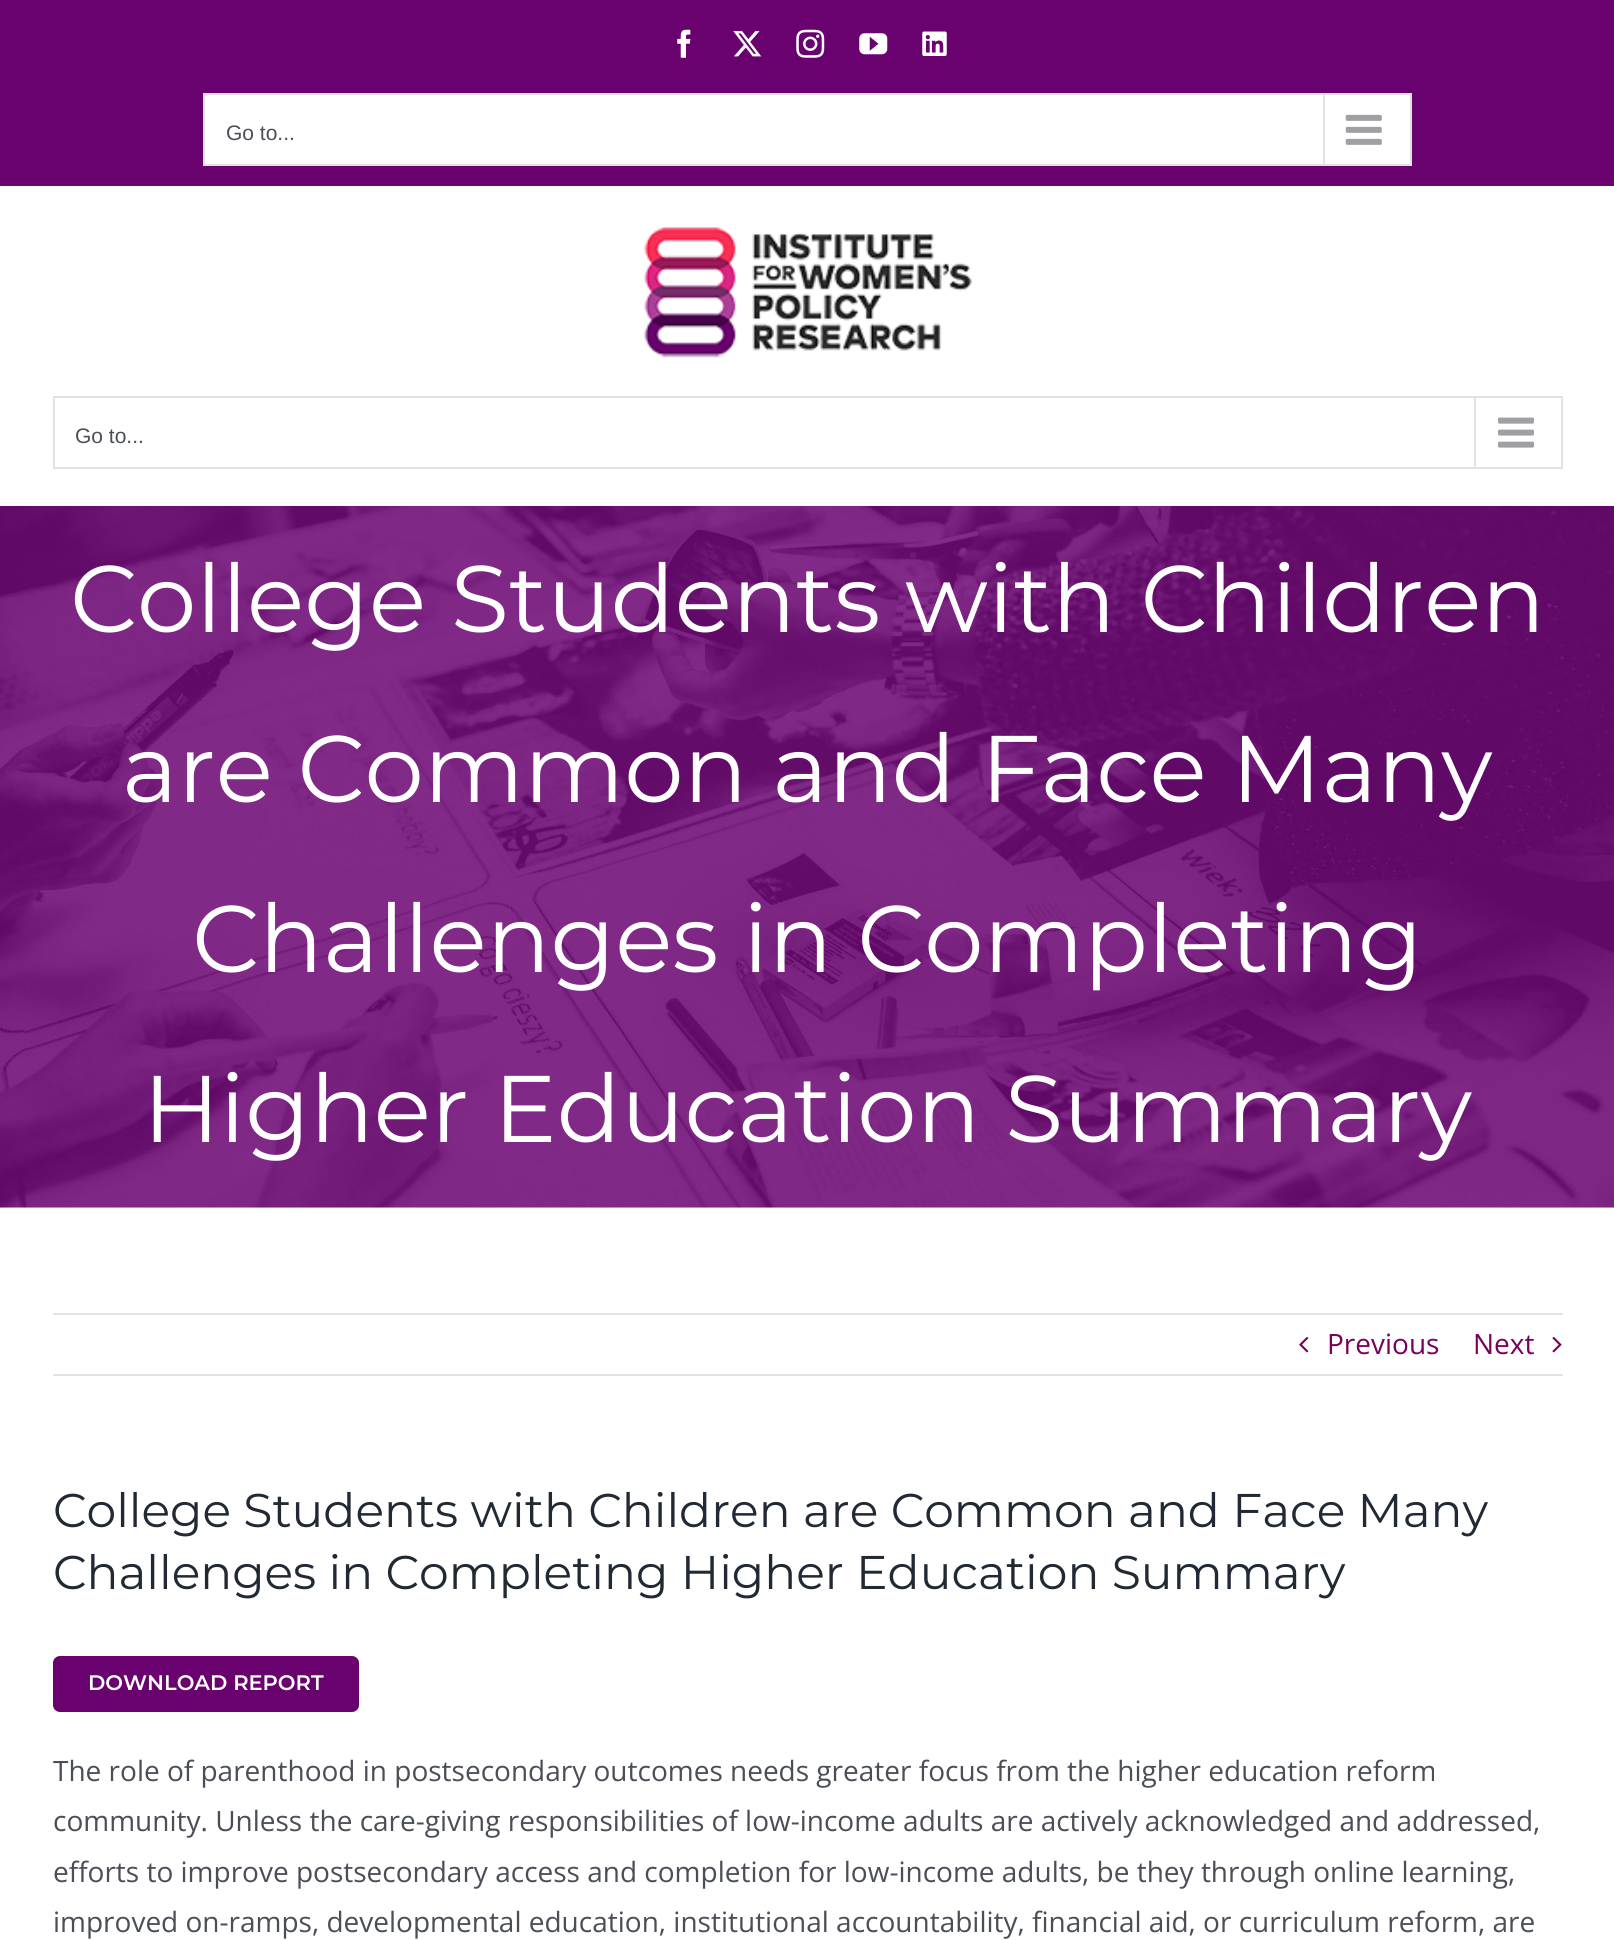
import math
import cairo

surface = cairo.ImageSurface(cairo.FORMAT_RGB24, 1614, 1940)
ctx = cairo.Context(surface)
options = cairo.FontOptions()
options.set_hint_metrics(cairo.HINT_METRICS_OFF)
options.set_hint_style(cairo.HINT_STYLE_NONE)
ctx.set_font_options(options)
ctx.set_miter_limit(4)


def round_rect(x, y, w, h, r):
    ctx.new_sub_path()
    for i, (u, v) in enumerate([(x + w - r, y + h - r), (x + r, y + h - r), (x + r, y + r), (x + w - r, y + r)]):
        ctx.arc(u, v, r, i * math.pi / 2, (i + 1) * math.pi / 2)
    ctx.close_path()


def picture(path, x, y, w, h):
    ctx.save()
    ctx.set_source_surface(cairo.ImageSurface.create_from_png(path), x, y)
    ctx.rectangle(x, y, w, h)
    ctx.fill()
    ctx.restore()


ctx.set_source_rgb(1, 1, 1)
ctx.paint()
ctx.set_source_rgb(0.412, 0.004, 0.431)
ctx.rectangle(0, 0, 1614, 186)
ctx.fill()
picture("img1.png", 677, 29, 14, 29)
picture("img2.png", 733, 31, 29, 26)
picture("img3.png", 796, 29, 29, 29)
picture("img4.png", 859, 33, 29, 22)
picture("img5.png", 922, 31, 25, 25)
ctx.set_source_rgb(1, 1, 1)
ctx.rectangle(204, 94, 1207, 71)
ctx.fill_preserve()
ctx.set_source_rgb(0.886, 0.886, 0.886)
ctx.stroke()
ctx.select_font_face("Liberation Sans")
ctx.set_font_size(21)
ctx.set_source_rgb(0.29, 0.306, 0.341)
ctx.move_to(226, 140)
ctx.show_text("Go to...")
ctx.set_source_rgb(0.886, 0.886, 0.886)
ctx.rectangle(1323, 95, 2, 70)
ctx.fill()
picture("img6.png", 1345, 114, 37, 31)
picture("img7.png", 643, 227, 329, 131)
ctx.rectangle(54, 397, 1508, 71)
ctx.stroke()
ctx.set_source_rgb(0.29, 0.306, 0.341)
ctx.move_to(75, 443)
ctx.show_text("Go to...")
ctx.set_source_rgb(0.886, 0.886, 0.886)
ctx.rectangle(1474, 397, 2, 70)
ctx.fill()
picture("img8.png", 1498, 417, 36, 31)
ctx.set_source_rgb(0.949, 0.953, 0.961)
ctx.rectangle(0, 1207, 1614, 1)
ctx.fill()
picture("img9.png", 0, 506, 1614, 702)
ctx.select_font_face("Montserrat")
ctx.set_font_size(94.5)
ctx.set_source_rgb(1, 1, 1)
ctx.move_to(70, 632)
ctx.show_text("College Students with Children")
ctx.move_to(122, 802)
ctx.show_text("are Common and Face Many")
ctx.move_to(192, 972)
ctx.show_text("Challenges in Completing")
ctx.move_to(143, 1142)
ctx.show_text("Higher Education Summary")
ctx.set_source_rgb(0.886, 0.886, 0.886)
ctx.rectangle(53, 1313, 1510, 2)
ctx.fill()
ctx.rectangle(53, 1374, 1510, 2)
ctx.fill()
picture("img10.png", 1299, 1336, 10, 17)
ctx.select_font_face("Open Sans")
ctx.set_font_size(28)
ctx.set_source_rgb(0.478, 0, 0.365)
ctx.move_to(1327, 1354)
ctx.show_text("Previous")
ctx.move_to(1473, 1354)
ctx.show_text("Next")
picture("img11.png", 1552, 1336, 10, 17)
ctx.select_font_face("Montserrat")
ctx.set_font_size(47.25)
ctx.set_source_rgb(0.129, 0.161, 0.204)
ctx.move_to(53, 1527)
ctx.show_text("College Students with Children are Common and Face Many")
ctx.move_to(53, 1589)
ctx.show_text("Challenges in Completing Higher Education Summary")
ctx.set_source_rgb(0.412, 0.004, 0.431)
round_rect(53, 1656, 306, 56, 7)
ctx.fill()
ctx.select_font_face("Montserrat SemiBold")
ctx.set_font_size(21)
ctx.set_source_rgb(1, 1, 1)
ctx.move_to(88, 1690)
ctx.show_text("DOWNLOAD REPORT")
ctx.select_font_face("Open Sans")
ctx.set_font_size(28)
ctx.set_source_rgb(0.29, 0.306, 0.341)
ctx.move_to(53, 1781)
ctx.show_text("The role of parenthood in postsecondary outcomes needs greater focus from the higher education reform")
ctx.move_to(53, 1831)
ctx.show_text("community. Unless the care-giving responsibilities of low-income adults are actively acknowledged and addressed,")
ctx.move_to(53, 1882)
ctx.show_text("efforts to improve postsecondary access and completion for low-income adults, be they through online learning,")
ctx.move_to(53, 1932)
ctx.show_text("improved on-ramps, developmental education, institutional accountability, financial aid, or curriculum reform, are")
surface.write_to_png("page.png")
